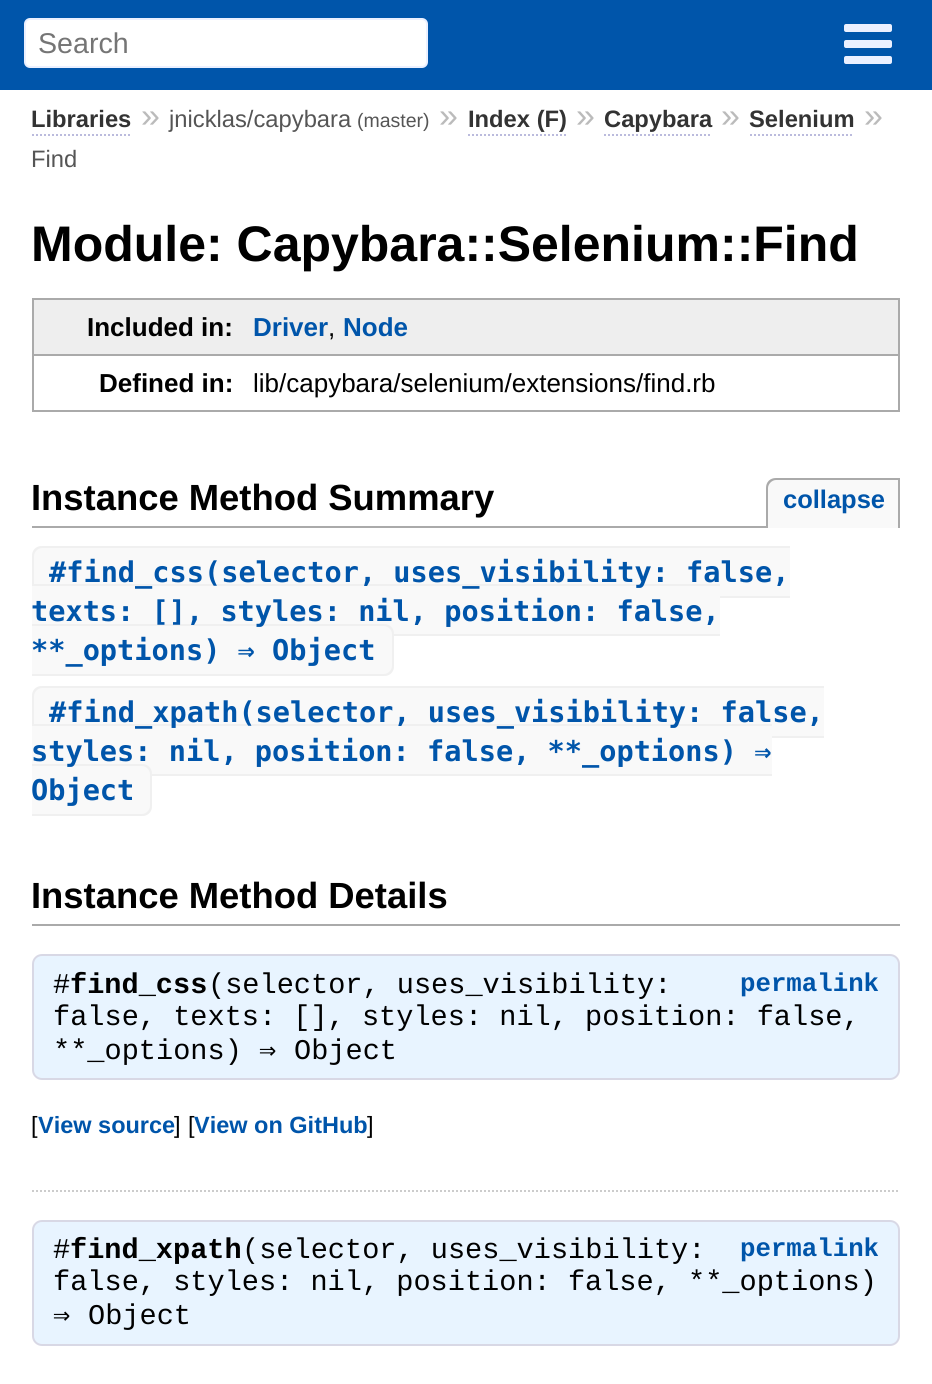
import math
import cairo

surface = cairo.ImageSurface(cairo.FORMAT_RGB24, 932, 1384)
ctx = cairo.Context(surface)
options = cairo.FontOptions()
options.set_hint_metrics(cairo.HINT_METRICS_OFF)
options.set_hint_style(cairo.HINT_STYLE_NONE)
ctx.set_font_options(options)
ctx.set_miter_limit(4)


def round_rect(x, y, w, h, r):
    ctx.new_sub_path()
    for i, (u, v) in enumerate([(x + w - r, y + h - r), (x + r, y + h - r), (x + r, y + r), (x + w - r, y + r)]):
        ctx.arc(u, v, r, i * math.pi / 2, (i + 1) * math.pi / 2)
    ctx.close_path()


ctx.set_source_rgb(1, 1, 1)
ctx.paint()
ctx.set_source_rgb(0, 0.333, 0.667)
ctx.rectangle(0, 0, 932, 90)
ctx.fill()
ctx.set_source_rgb(1, 1, 1)
round_rect(25, 19, 402, 48, 5)
ctx.fill_preserve()
ctx.set_source_rgb(0.918, 0.941, 1)
ctx.stroke()
ctx.select_font_face("Liberation Sans")
ctx.set_font_size(28.6)
ctx.set_source_rgb(0.459, 0.459, 0.459)
ctx.move_to(38, 53)
ctx.show_text("Search")
ctx.set_source_rgb(0.918, 0.941, 1)
round_rect(844, 24, 48, 8, 2)
ctx.fill()
round_rect(844, 40, 48, 8, 2)
ctx.fill()
round_rect(844, 56, 48, 8, 2)
ctx.fill()
ctx.select_font_face("Liberation Sans", cairo.FONT_SLANT_NORMAL, cairo.FONT_WEIGHT_BOLD)
ctx.set_font_size(23.75)
ctx.set_source_rgb(0.2, 0.2, 0.2)
ctx.move_to(31, 127)
ctx.show_text("Libraries")
ctx.new_path()
ctx.move_to(32, 135)
ctx.line_to(132, 135)
ctx.set_source_rgb(0.733, 0.733, 0.867)
ctx.set_dash([2, 2])
ctx.stroke()
ctx.select_font_face("Liberation Sans")
ctx.set_font_size(34)
ctx.set_source_rgb(0.733, 0.733, 0.733)
ctx.move_to(141, 127)
ctx.show_text("»")
ctx.set_font_size(23.75)
ctx.set_source_rgb(0.333, 0.333, 0.333)
ctx.move_to(169, 127)
ctx.show_text("jnicklas/capybara")
ctx.set_font_size(19.5)
ctx.move_to(357, 127)
ctx.show_text("(master)")
ctx.set_font_size(34)
ctx.set_source_rgb(0.733, 0.733, 0.733)
ctx.move_to(439, 127)
ctx.show_text("»")
ctx.select_font_face("Liberation Sans", cairo.FONT_SLANT_NORMAL, cairo.FONT_WEIGHT_BOLD)
ctx.set_font_size(23.75)
ctx.set_source_rgb(0.2, 0.2, 0.2)
ctx.move_to(468, 127)
ctx.show_text("Index (F)")
ctx.new_path()
ctx.move_to(468, 135)
ctx.line_to(566, 135)
ctx.set_source_rgb(0.733, 0.733, 0.867)
ctx.stroke()
ctx.select_font_face("Liberation Sans")
ctx.set_font_size(34)
ctx.set_source_rgb(0.733, 0.733, 0.733)
ctx.move_to(576, 127)
ctx.show_text("»")
ctx.select_font_face("Liberation Sans", cairo.FONT_SLANT_NORMAL, cairo.FONT_WEIGHT_BOLD)
ctx.set_font_size(23.75)
ctx.set_source_rgb(0.2, 0.2, 0.2)
ctx.move_to(604, 127)
ctx.show_text("Capybara")
ctx.new_path()
ctx.move_to(604, 135)
ctx.line_to(712, 135)
ctx.set_source_rgb(0.733, 0.733, 0.867)
ctx.stroke()
ctx.select_font_face("Liberation Sans")
ctx.set_font_size(34)
ctx.set_source_rgb(0.733, 0.733, 0.733)
ctx.move_to(721, 127)
ctx.show_text("»")
ctx.select_font_face("Liberation Sans", cairo.FONT_SLANT_NORMAL, cairo.FONT_WEIGHT_BOLD)
ctx.set_font_size(23.75)
ctx.set_source_rgb(0.2, 0.2, 0.2)
ctx.move_to(749, 127)
ctx.show_text("Selenium")
ctx.new_path()
ctx.move_to(750, 135)
ctx.line_to(854, 135)
ctx.set_source_rgb(0.733, 0.733, 0.867)
ctx.stroke()
ctx.select_font_face("Liberation Sans")
ctx.set_font_size(34)
ctx.set_source_rgb(0.733, 0.733, 0.733)
ctx.move_to(864, 127)
ctx.show_text("»")
ctx.set_font_size(23.75)
ctx.set_source_rgb(0.333, 0.333, 0.333)
ctx.move_to(31, 167)
ctx.show_text("Find")
ctx.select_font_face("Liberation Sans", cairo.FONT_SLANT_NORMAL, cairo.FONT_WEIGHT_BOLD)
ctx.set_font_size(50)
ctx.set_source_rgb(0, 0, 0)
ctx.move_to(31, 261)
ctx.show_text("Module: Capybara::Selenium::Find")
ctx.set_source_rgb(0.933, 0.933, 0.933)
ctx.rectangle(34, 300, 864, 54)
ctx.fill()
ctx.set_source_rgb(0.667, 0.667, 0.667)
ctx.rectangle(32, 298, 868, 2)
ctx.fill()
ctx.rectangle(32, 298, 2, 56)
ctx.fill()
ctx.set_font_size(26)
ctx.set_source_rgb(0, 0, 0)
ctx.move_to(87, 336)
ctx.show_text("Included in:")
ctx.set_source_rgb(0.667, 0.667, 0.667)
ctx.rectangle(32, 354, 868, 2)
ctx.fill()
ctx.rectangle(898, 298, 2, 114)
ctx.fill()
ctx.set_source_rgb(0, 0.333, 0.667)
ctx.move_to(253, 336)
ctx.show_text("Driver")
ctx.select_font_face("Liberation Sans")
ctx.set_source_rgb(0, 0, 0)
ctx.move_to(328, 336)
ctx.show_text(",")
ctx.select_font_face("Liberation Sans", cairo.FONT_SLANT_NORMAL, cairo.FONT_WEIGHT_BOLD)
ctx.set_source_rgb(0, 0.333, 0.667)
ctx.move_to(343, 336)
ctx.show_text("Node")
ctx.set_source_rgb(0.667, 0.667, 0.667)
ctx.rectangle(32, 410, 222, 2)
ctx.fill()
ctx.rectangle(32, 354, 2, 58)
ctx.fill()
ctx.set_source_rgb(0, 0, 0)
ctx.move_to(99, 392)
ctx.show_text("Defined in:")
ctx.set_source_rgb(0.667, 0.667, 0.667)
ctx.rectangle(254, 410, 646, 2)
ctx.fill()
ctx.select_font_face("Liberation Sans")
ctx.set_source_rgb(0, 0, 0)
ctx.move_to(253, 392)
ctx.show_text("lib/capybara/selenium/extensions/find.rb")
ctx.set_source_rgb(0.667, 0.667, 0.667)
ctx.rectangle(32, 526, 734, 2)
ctx.fill()
ctx.select_font_face("Liberation Sans", cairo.FONT_SLANT_NORMAL, cairo.FONT_WEIGHT_BOLD)
ctx.set_font_size(36.4)
ctx.set_source_rgb(0, 0, 0)
ctx.move_to(31, 510)
ctx.show_text("Instance Method Summary")
ctx.set_source_rgb(0.973, 0.973, 0.973)
ctx.new_path()
ctx.move_to(776, 478)
ctx.line_to(900, 478)
ctx.line_to(900, 528)
ctx.line_to(766, 528)
ctx.line_to(766, 488)
ctx.curve_to(766, 482.5, 770.5, 478, 776, 478)
ctx.close_path()
ctx.fill()
ctx.set_source_rgb(0.667, 0.667, 0.667)
ctx.set_fill_rule(cairo.FILL_RULE_EVEN_ODD)
ctx.new_path()
ctx.move_to(776, 478)
ctx.line_to(900, 478)
ctx.line_to(900, 528)
ctx.line_to(766, 528)
ctx.line_to(766, 488)
ctx.curve_to(766, 482, 770, 478, 776, 478)
ctx.close_path()
ctx.move_to(776, 480)
ctx.line_to(898, 480)
ctx.line_to(898, 528)
ctx.line_to(768, 528)
ctx.line_to(768, 488)
ctx.curve_to(768, 484, 772, 480, 776, 480)
ctx.close_path()
ctx.fill()
ctx.set_font_size(25.5)
ctx.set_source_rgb(0, 0.333, 0.667)
ctx.move_to(783, 508)
ctx.show_text("collapse")
ctx.set_source_rgb(0.973, 0.973, 0.973)
ctx.new_path()
ctx.move_to(42, 546)
ctx.line_to(66, 546)
ctx.line_to(66, 598)
ctx.line_to(42, 598)
ctx.curve_to(36.5, 598, 32, 593.5, 32, 588)
ctx.line_to(32, 556)
ctx.curve_to(32, 550.5, 36.5, 546, 42, 546)
ctx.close_path()
ctx.fill()
ctx.set_source_rgb(0.941, 0.941, 0.941)
ctx.new_path()
ctx.move_to(42, 546)
ctx.line_to(66, 546)
ctx.line_to(66, 598)
ctx.line_to(42, 598)
ctx.curve_to(36, 598, 32, 594, 32, 588)
ctx.line_to(32, 556)
ctx.curve_to(32, 550, 36, 546, 42, 546)
ctx.close_path()
ctx.move_to(42, 548)
ctx.line_to(66, 548)
ctx.line_to(66, 596)
ctx.line_to(42, 596)
ctx.curve_to(38, 596, 34, 592, 34, 588)
ctx.line_to(34, 556)
ctx.curve_to(34, 552, 38, 548, 42, 548)
ctx.close_path()
ctx.fill()
ctx.set_source_rgb(0.973, 0.973, 0.973)
ctx.rectangle(66, 548, 138, 36)
ctx.fill()
ctx.rectangle(204, 548, 586, 48)
ctx.fill()
ctx.set_source_rgb(0.941, 0.941, 0.941)
ctx.rectangle(32, 584, 688, 2)
ctx.fill()
ctx.set_source_rgb(0.973, 0.973, 0.973)
ctx.rectangle(32, 586, 688, 48)
ctx.fill()
ctx.select_font_face("DejaVu Sans Mono", cairo.FONT_SLANT_NORMAL, cairo.FONT_WEIGHT_BOLD)
ctx.set_font_size(28.6)
ctx.set_source_rgb(0, 0.333, 0.667)
ctx.move_to(49, 582)
ctx.show_text("#find_css(selector, uses_visibility: false,")
ctx.set_source_rgb(0.941, 0.941, 0.941)
ctx.rectangle(66, 546, 724, 2)
ctx.fill()
ctx.set_source_rgb(0.973, 0.973, 0.973)
ctx.new_path()
ctx.move_to(32, 624)
ctx.line_to(384, 624)
ctx.curve_to(389.5, 624, 394, 628.5, 394, 634)
ctx.line_to(394, 666)
ctx.curve_to(394, 671.5, 389.5, 676, 384, 676)
ctx.line_to(32, 676)
ctx.close_path()
ctx.fill()
ctx.set_source_rgb(0.941, 0.941, 0.941)
ctx.new_path()
ctx.move_to(32, 624)
ctx.line_to(384, 624)
ctx.curve_to(390, 624, 394, 628, 394, 634)
ctx.line_to(394, 666)
ctx.curve_to(394, 672, 390, 676, 384, 676)
ctx.line_to(32, 676)
ctx.close_path()
ctx.move_to(32, 626)
ctx.line_to(384, 626)
ctx.curve_to(388, 626, 392, 630, 392, 634)
ctx.line_to(392, 666)
ctx.curve_to(392, 670, 388, 674, 384, 674)
ctx.line_to(32, 674)
ctx.close_path()
ctx.fill()
ctx.set_source_rgb(0, 0.333, 0.667)
ctx.move_to(31, 621)
ctx.show_text("texts: [], styles: nil, position: false,")
ctx.set_source_rgb(0.941, 0.941, 0.941)
ctx.rectangle(720, 596, 70, 2)
ctx.fill()
ctx.rectangle(394, 634, 326, 2)
ctx.fill()
ctx.set_source_rgb(0, 0.333, 0.667)
ctx.move_to(31, 660)
ctx.show_text("**_options) ⇒ Object")
ctx.set_source_rgb(0.973, 0.973, 0.973)
ctx.new_path()
ctx.move_to(42, 686)
ctx.line_to(66, 686)
ctx.line_to(66, 738)
ctx.line_to(42, 738)
ctx.curve_to(36.5, 738, 32, 733.5, 32, 728)
ctx.line_to(32, 696)
ctx.curve_to(32, 690.5, 36.5, 686, 42, 686)
ctx.close_path()
ctx.fill()
ctx.set_source_rgb(0.941, 0.941, 0.941)
ctx.new_path()
ctx.move_to(42, 686)
ctx.line_to(66, 686)
ctx.line_to(66, 738)
ctx.line_to(42, 738)
ctx.curve_to(36, 738, 32, 734, 32, 728)
ctx.line_to(32, 696)
ctx.curve_to(32, 690, 36, 686, 42, 686)
ctx.close_path()
ctx.move_to(42, 688)
ctx.line_to(66, 688)
ctx.line_to(66, 736)
ctx.line_to(42, 736)
ctx.curve_to(38, 736, 34, 732, 34, 728)
ctx.line_to(34, 696)
ctx.curve_to(34, 692, 38, 688, 42, 688)
ctx.close_path()
ctx.fill()
ctx.set_source_rgb(0.973, 0.973, 0.973)
ctx.rectangle(66, 688, 172, 36)
ctx.fill()
ctx.rectangle(238, 688, 586, 48)
ctx.fill()
ctx.set_source_rgb(0.941, 0.941, 0.941)
ctx.rectangle(32, 724, 740, 2)
ctx.fill()
ctx.set_source_rgb(0.973, 0.973, 0.973)
ctx.rectangle(32, 726, 740, 48)
ctx.fill()
ctx.set_source_rgb(0, 0.333, 0.667)
ctx.move_to(49, 722)
ctx.show_text("#find_xpath(selector, uses_visibility: false,")
ctx.set_source_rgb(0.941, 0.941, 0.941)
ctx.rectangle(66, 686, 758, 2)
ctx.fill()
ctx.set_source_rgb(0.973, 0.973, 0.973)
ctx.new_path()
ctx.move_to(32, 764)
ctx.line_to(142, 764)
ctx.curve_to(147.5, 764, 152, 768.5, 152, 774)
ctx.line_to(152, 806)
ctx.curve_to(152, 811.5, 147.5, 816, 142, 816)
ctx.line_to(32, 816)
ctx.close_path()
ctx.fill()
ctx.set_source_rgb(0.941, 0.941, 0.941)
ctx.new_path()
ctx.move_to(32, 764)
ctx.line_to(142, 764)
ctx.curve_to(148, 764, 152, 768, 152, 774)
ctx.line_to(152, 806)
ctx.curve_to(152, 812, 148, 816, 142, 816)
ctx.line_to(32, 816)
ctx.close_path()
ctx.move_to(32, 766)
ctx.line_to(142, 766)
ctx.curve_to(146, 766, 150, 770, 150, 774)
ctx.line_to(150, 806)
ctx.curve_to(150, 810, 146, 814, 142, 814)
ctx.line_to(32, 814)
ctx.close_path()
ctx.fill()
ctx.set_source_rgb(0, 0.333, 0.667)
ctx.move_to(31, 761)
ctx.show_text("styles: nil, position: false, **_options) ⇒")
ctx.set_source_rgb(0.941, 0.941, 0.941)
ctx.rectangle(772, 736, 52, 2)
ctx.fill()
ctx.rectangle(152, 774, 620, 2)
ctx.fill()
ctx.set_source_rgb(0, 0.333, 0.667)
ctx.move_to(31, 800)
ctx.show_text("Object")
ctx.set_source_rgb(0.667, 0.667, 0.667)
ctx.rectangle(32, 924, 868, 2)
ctx.fill()
ctx.select_font_face("Liberation Sans", cairo.FONT_SLANT_NORMAL, cairo.FONT_WEIGHT_BOLD)
ctx.set_font_size(36.4)
ctx.set_source_rgb(0, 0, 0)
ctx.move_to(31, 908)
ctx.show_text("Instance Method Details")
ctx.set_source_rgb(0.91, 0.957, 1)
round_rect(33, 955, 866, 124, 9)
ctx.fill_preserve()
ctx.set_source_rgb(0.847, 0.847, 0.898)
ctx.set_dash([])
ctx.stroke()
ctx.select_font_face("Liberation Mono")
ctx.set_font_size(28.6)
ctx.set_source_rgb(0, 0, 0)
ctx.move_to(53, 993)
ctx.show_text("#")
ctx.select_font_face("Liberation Mono", cairo.FONT_SLANT_NORMAL, cairo.FONT_WEIGHT_BOLD)
ctx.move_to(70, 993)
ctx.show_text("find_css")
ctx.select_font_face("Liberation Mono")
ctx.move_to(208, 993)
ctx.show_text("(selector, uses_visibility:")
ctx.select_font_face("Liberation Mono", cairo.FONT_SLANT_NORMAL, cairo.FONT_WEIGHT_BOLD)
ctx.set_font_size(25.75)
ctx.set_source_rgb(0, 0.333, 0.667)
ctx.move_to(740, 991)
ctx.show_text("permalink")
ctx.select_font_face("Liberation Mono")
ctx.set_font_size(28.6)
ctx.set_source_rgb(0, 0, 0)
ctx.move_to(53, 1025)
ctx.show_text("false, texts: [], styles: nil, position: false,")
ctx.move_to(53, 1059)
ctx.show_text("**_options)")
ctx.select_font_face("DejaVu Sans Mono")
ctx.move_to(259, 1059)
ctx.show_text("⇒")
ctx.select_font_face("Liberation Mono")
ctx.move_to(294, 1059)
ctx.show_text("Object")
ctx.select_font_face("Liberation Sans")
ctx.set_font_size(23.5)
ctx.move_to(31, 1133)
ctx.show_text("[")
ctx.select_font_face("Liberation Sans", cairo.FONT_SLANT_NORMAL, cairo.FONT_WEIGHT_BOLD)
ctx.set_source_rgb(0, 0.333, 0.667)
ctx.move_to(38, 1133)
ctx.show_text("View source")
ctx.select_font_face("Liberation Sans")
ctx.set_source_rgb(0, 0, 0)
ctx.move_to(174, 1133)
ctx.show_text("]")
ctx.move_to(188, 1133)
ctx.show_text("[")
ctx.select_font_face("Liberation Sans", cairo.FONT_SLANT_NORMAL, cairo.FONT_WEIGHT_BOLD)
ctx.set_source_rgb(0, 0.333, 0.667)
ctx.move_to(194, 1133)
ctx.show_text("View on GitHub")
ctx.select_font_face("Liberation Sans")
ctx.set_source_rgb(0, 0, 0)
ctx.move_to(367, 1133)
ctx.show_text("]")
ctx.new_path()
ctx.move_to(32, 1191)
ctx.line_to(900, 1191)
ctx.set_source_rgb(0.8, 0.8, 0.8)
ctx.set_dash([2, 2])
ctx.stroke()
ctx.set_source_rgb(0.91, 0.957, 1)
round_rect(33, 1221, 866, 124, 9)
ctx.fill_preserve()
ctx.set_source_rgb(0.847, 0.847, 0.898)
ctx.set_dash([])
ctx.stroke()
ctx.select_font_face("Liberation Mono")
ctx.set_font_size(28.6)
ctx.set_source_rgb(0, 0, 0)
ctx.move_to(53, 1258)
ctx.show_text("#")
ctx.select_font_face("Liberation Mono", cairo.FONT_SLANT_NORMAL, cairo.FONT_WEIGHT_BOLD)
ctx.move_to(70, 1258)
ctx.show_text("find_xpath")
ctx.select_font_face("Liberation Mono")
ctx.move_to(242, 1258)
ctx.show_text("(selector, uses_visibility:")
ctx.select_font_face("Liberation Mono", cairo.FONT_SLANT_NORMAL, cairo.FONT_WEIGHT_BOLD)
ctx.set_font_size(25.75)
ctx.set_source_rgb(0, 0.333, 0.667)
ctx.move_to(740, 1256)
ctx.show_text("permalink")
ctx.select_font_face("Liberation Mono")
ctx.set_font_size(28.6)
ctx.set_source_rgb(0, 0, 0)
ctx.move_to(53, 1290)
ctx.show_text("false, styles: nil, position: false, **_options)")
ctx.select_font_face("DejaVu Sans Mono")
ctx.move_to(53, 1324)
ctx.show_text("⇒")
ctx.select_font_face("Liberation Mono")
ctx.move_to(88, 1324)
ctx.show_text("Object")
surface.write_to_png("page.png")
